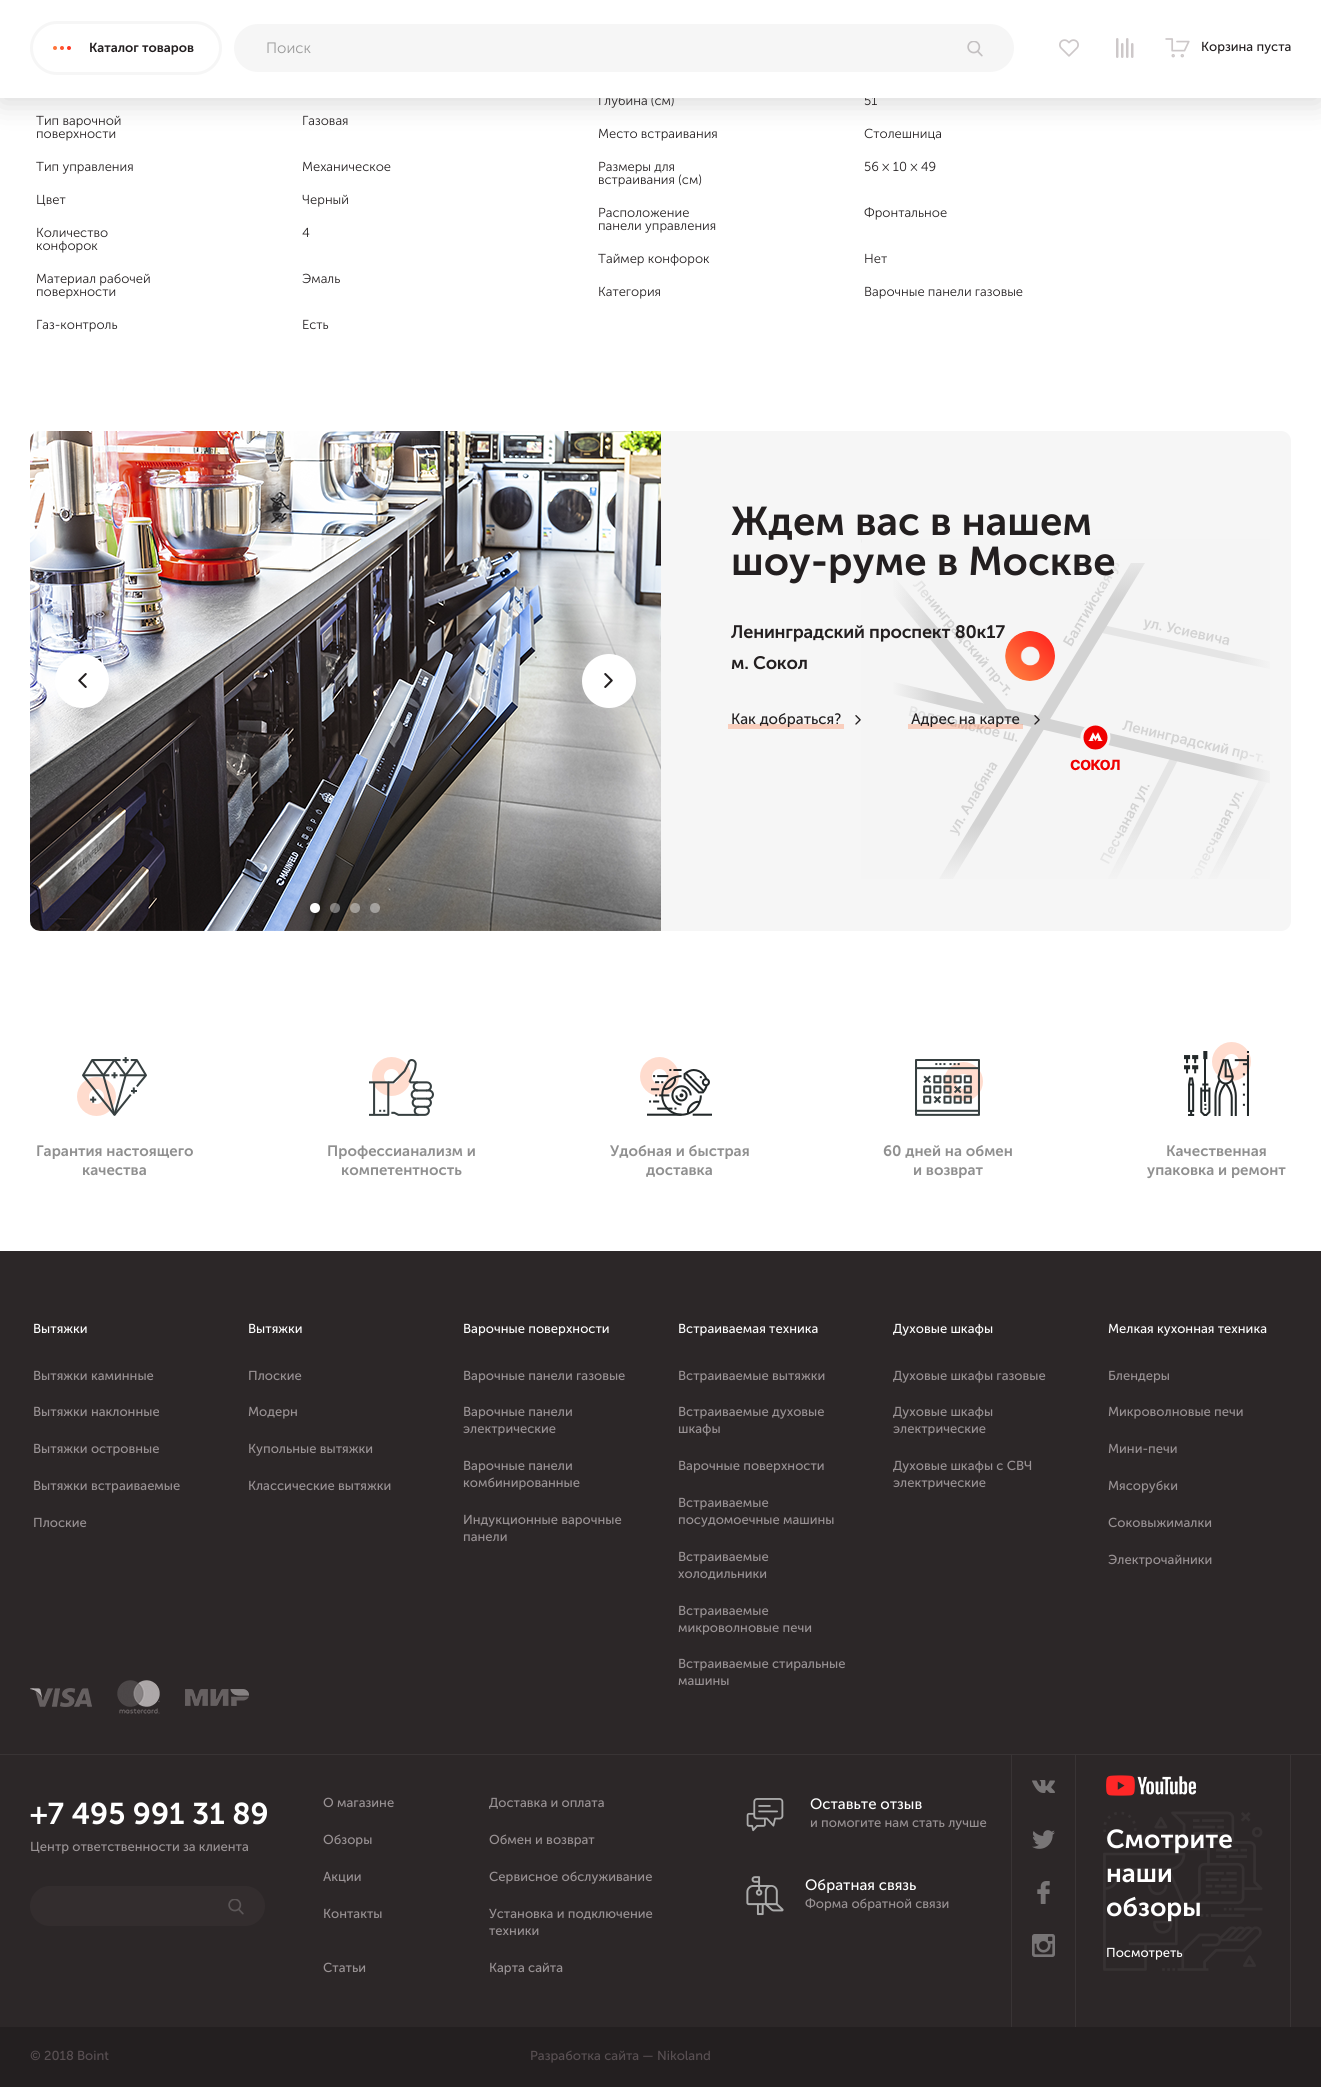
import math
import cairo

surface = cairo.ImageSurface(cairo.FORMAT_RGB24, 1321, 2087)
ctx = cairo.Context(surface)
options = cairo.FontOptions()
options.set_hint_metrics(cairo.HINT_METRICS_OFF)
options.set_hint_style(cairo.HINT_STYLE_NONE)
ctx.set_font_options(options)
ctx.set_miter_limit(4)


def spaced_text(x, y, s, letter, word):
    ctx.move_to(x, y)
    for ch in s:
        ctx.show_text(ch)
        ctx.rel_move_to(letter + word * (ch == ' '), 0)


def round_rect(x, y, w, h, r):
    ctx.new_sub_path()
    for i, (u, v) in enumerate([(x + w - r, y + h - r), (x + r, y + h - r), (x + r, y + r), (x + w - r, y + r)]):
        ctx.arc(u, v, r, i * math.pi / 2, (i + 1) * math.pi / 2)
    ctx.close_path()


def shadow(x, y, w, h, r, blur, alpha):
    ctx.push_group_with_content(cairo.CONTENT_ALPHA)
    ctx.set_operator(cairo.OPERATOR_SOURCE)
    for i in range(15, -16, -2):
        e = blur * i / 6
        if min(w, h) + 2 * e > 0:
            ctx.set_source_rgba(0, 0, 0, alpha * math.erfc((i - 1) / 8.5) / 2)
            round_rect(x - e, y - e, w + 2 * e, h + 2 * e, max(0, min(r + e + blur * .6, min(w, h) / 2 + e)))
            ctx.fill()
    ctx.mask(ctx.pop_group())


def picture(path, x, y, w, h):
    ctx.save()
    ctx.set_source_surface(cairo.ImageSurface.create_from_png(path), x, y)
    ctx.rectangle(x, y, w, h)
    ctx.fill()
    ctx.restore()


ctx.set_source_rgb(1, 1, 1)
ctx.paint()
ctx.set_source_rgb(0, 0, 0)
shadow(0, -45, 1321, 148, 0, 15, 0.15)
ctx.select_font_face("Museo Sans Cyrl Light")
ctx.set_font_size(13)
ctx.set_source_rgb(0.137, 0.122, 0.125)
ctx.move_to(598, 105)
ctx.show_text("Глубина (см)")
ctx.move_to(864, 105)
ctx.show_text("51")
ctx.set_source_rgb(1, 1, 1)
ctx.rectangle(0, 0, 1321, 98)
ctx.fill()
round_rect(31.5, 22.5, 189, 51, 25.5)
ctx.set_source_rgb(0.961, 0.961, 0.961)
ctx.set_line_width(3)
ctx.stroke()
ctx.set_source_rgb(1, 0.459, 0.227)
ctx.arc(55, 48, 2, 0, 2 * math.pi)
ctx.fill()
ctx.set_source_rgb(1, 0.325, 0.18)
ctx.arc(62, 48, 2, 0, 2 * math.pi)
ctx.fill()
ctx.set_source_rgb(1, 0.212, 0.141)
ctx.arc(69, 48, 2, 0, 2 * math.pi)
ctx.fill()
ctx.select_font_face("Museo Sans Cyrl SemiBold")
ctx.set_source_rgb(0.137, 0.122, 0.125)
ctx.move_to(89, 52)
ctx.show_text("Каталог товаров")
ctx.set_source_rgb(0.961, 0.961, 0.961)
round_rect(235, 25, 778, 46, 23)
ctx.fill_preserve()
ctx.set_line_width(2)
ctx.stroke()
ctx.select_font_face("Museo Sans Cyrl Light")
ctx.set_font_size(15)
ctx.set_source_rgb(0.604, 0.604, 0.604)
ctx.move_to(266, 53)
ctx.show_text("Поиск")
picture("img1.png", 967, 41, 16, 16)
picture("img2.png", 1059, 39, 20, 18)
picture("img3.png", 1116, 38, 18, 20)
picture("img4.png", 1165, 38, 25, 20)
ctx.select_font_face("Museo Sans Cyrl")
ctx.set_font_size(13)
ctx.set_source_rgb(0.137, 0.122, 0.125)
ctx.move_to(1201, 51)
ctx.show_text("Корзина пуста")
ctx.select_font_face("Museo Sans Cyrl Light")
ctx.move_to(36, 125)
ctx.show_text("Тип варочной")
ctx.move_to(36, 138)
ctx.show_text("поверхности")
ctx.move_to(302, 125)
ctx.show_text("Газовая")
ctx.move_to(36, 171)
ctx.show_text("Тип управления")
ctx.move_to(302, 171)
ctx.show_text("Механическое")
ctx.move_to(36, 204)
ctx.show_text("Цвет")
ctx.move_to(302, 204)
ctx.show_text("Черный")
ctx.move_to(36, 237)
ctx.show_text("Количество")
ctx.move_to(36, 250)
ctx.show_text("конфорок")
ctx.move_to(302, 237)
ctx.show_text("4")
ctx.move_to(36, 283)
ctx.show_text("Материал рабочей")
ctx.move_to(36, 296)
ctx.show_text("поверхности")
ctx.move_to(302, 283)
ctx.show_text("Эмаль")
ctx.move_to(36, 329)
ctx.show_text("Газ-контроль")
ctx.move_to(302, 329)
ctx.show_text("Есть")
ctx.move_to(598, 138)
ctx.show_text("Место встраивания")
ctx.move_to(864, 138)
ctx.show_text("Столешница")
ctx.move_to(598, 171)
ctx.show_text("Размеры для")
ctx.move_to(598, 184)
ctx.show_text("встраивания (см)")
ctx.move_to(864, 171)
ctx.show_text("56 × 10 × 49")
ctx.move_to(598, 217)
ctx.show_text("Расположение")
ctx.move_to(598, 230)
ctx.show_text("панели управления")
ctx.move_to(864, 217)
ctx.show_text("Фронтальное")
ctx.move_to(598, 263)
ctx.show_text("Таймер конфорок")
ctx.move_to(864, 263)
ctx.show_text("Нет")
ctx.move_to(598, 296)
ctx.show_text("Категория")
ctx.move_to(864, 296)
ctx.show_text("Варочные панели газовые")
picture("img5.png", 30, 431, 631, 500)
ctx.set_source_rgb(0, 0, 0)
shadow(310, 905, 10, 10, 5, 3.5, 0.3)
ctx.set_source_rgb(1, 1, 1)
ctx.arc(315, 908, 5, 0, 2 * math.pi)
ctx.fill()
ctx.set_source_rgba(1, 1, 1, 0.4)
ctx.arc(335, 908, 5, 0, 2 * math.pi)
ctx.fill()
ctx.arc(355, 908, 5, 0, 2 * math.pi)
ctx.fill()
ctx.arc(375, 908, 5, 0, 2 * math.pi)
ctx.fill()
ctx.set_source_rgb(1, 1, 1)
ctx.arc(82, 681, 27, 0, 2 * math.pi)
ctx.fill()
picture("img6.png", 78, 673, 9, 15)
ctx.arc(609, 681, 27, 0, 2 * math.pi)
ctx.fill()
picture("img7.png", 604, 673, 9, 15)
ctx.set_source_rgb(0.961, 0.961, 0.961)
ctx.new_path()
ctx.move_to(661, 431)
ctx.line_to(1281, 431)
ctx.curve_to(1286.5, 431, 1291, 435.5, 1291, 441)
ctx.line_to(1291, 921)
ctx.curve_to(1291, 926.5, 1286.5, 931, 1281, 931)
ctx.line_to(661, 931)
ctx.close_path()
ctx.fill()
picture("img8.png", 861, 539, 409, 340)
ctx.select_font_face("Museo Sans Cyrl SemiBold")
ctx.set_font_size(40)
ctx.set_source_rgb(0.137, 0.122, 0.125)
ctx.move_to(731, 535)
ctx.show_text("Ждем вас в нашем")
ctx.move_to(731, 575)
ctx.show_text("шоу-руме в Москве")
ctx.set_font_size(18)
spaced_text(731, 638, "Ленинградский проспект 80к17", -0.2, 0)
spaced_text(731, 669, "м. Сокол", -0.2, 0)
ctx.set_source_rgb(0.973, 0.808, 0.741)
ctx.rectangle(728, 724, 116, 5)
ctx.fill()
ctx.select_font_face("Museo Sans Cyrl")
ctx.set_font_size(15)
ctx.set_source_rgb(0.137, 0.122, 0.125)
ctx.move_to(731, 724)
ctx.show_text("Как добраться?")
picture("img9.png", 855, 715, 6, 10)
ctx.set_source_rgba(1, 0.451, 0.227, 0.3)
ctx.rectangle(908, 724, 115, 5)
ctx.fill()
ctx.set_source_rgb(0.137, 0.122, 0.125)
ctx.move_to(911, 724)
ctx.show_text("Адрес на карте")
picture("img10.png", 1034, 715, 6, 10)
ctx.arc(96.5, 1096.5, 13.5, 0, 2 * math.pi)
ctx.set_source_rgb(1, 0.863, 0.808)
ctx.set_line_width(12)
ctx.stroke()
picture("img11.png", 82, 1057, 65, 59)
ctx.select_font_face("Museo Sans Cyrl SemiBold")
ctx.set_source_rgb(0.565, 0.565, 0.565)
ctx.move_to(36, 1156)
ctx.show_text("Гарантия настоящего")
ctx.move_to(82, 1175)
ctx.show_text("качества")
ctx.new_path()
ctx.arc(391.5, 1076.5, 13.5, 0, 2 * math.pi)
ctx.set_source_rgb(1, 0.863, 0.808)
ctx.stroke()
picture("img12.png", 369, 1059, 65, 57)
ctx.set_source_rgb(0.565, 0.565, 0.565)
ctx.move_to(327, 1156)
ctx.show_text("Профессианализм и")
ctx.move_to(341, 1175)
ctx.show_text("компетентность")
ctx.new_path()
ctx.arc(659.5, 1076.5, 13.5, 0, 2 * math.pi)
ctx.set_source_rgb(1, 0.863, 0.808)
ctx.stroke()
picture("img13.png", 647, 1069, 65, 47)
ctx.set_source_rgb(0.565, 0.565, 0.565)
ctx.move_to(610, 1156)
ctx.show_text("Удобная и быстрая")
ctx.move_to(646, 1175)
ctx.show_text("доставка")
ctx.new_path()
ctx.arc(963.5, 1081.5, 13.5, 0, 2 * math.pi)
ctx.set_source_rgb(1, 0.863, 0.808)
ctx.stroke()
picture("img14.png", 915, 1059, 65, 57)
ctx.set_source_rgb(0.565, 0.565, 0.565)
ctx.move_to(883, 1156)
ctx.show_text("60 дней на обмен")
ctx.move_to(913, 1175)
ctx.show_text("и возврат")
ctx.new_path()
ctx.arc(1231.5, 1061.5, 13.5, 0, 2 * math.pi)
ctx.set_source_rgb(1, 0.863, 0.808)
ctx.stroke()
picture("img15.png", 1184, 1051, 65, 65)
ctx.set_source_rgb(0.565, 0.565, 0.565)
ctx.move_to(1166, 1156)
ctx.show_text("Качественная")
ctx.move_to(1147, 1175)
ctx.show_text("упаковка и ремонт")
ctx.set_source_rgb(0.173, 0.153, 0.157)
ctx.rectangle(0, 1251, 1321, 776)
ctx.fill()
ctx.set_source_rgb(0.224, 0.204, 0.208)
ctx.rectangle(0, 1754, 1321, 1)
ctx.fill()
ctx.select_font_face("Museo Sans Cyrl")
ctx.set_font_size(13)
ctx.set_source_rgb(1, 1, 1)
ctx.move_to(33, 1333)
ctx.show_text("Вытяжки")
ctx.set_source_rgb(0.6, 0.573, 0.58)
ctx.move_to(33, 1380)
ctx.show_text("Вытяжки каминные")
ctx.move_to(33, 1416)
ctx.show_text("Вытяжки наклонные")
ctx.move_to(33, 1453)
ctx.show_text("Вытяжки островные")
ctx.move_to(33, 1490)
ctx.show_text("Вытяжки встраиваемые")
ctx.move_to(33, 1527)
ctx.show_text("Плоские")
ctx.set_source_rgb(1, 1, 1)
ctx.move_to(248, 1333)
ctx.show_text("Вытяжки")
ctx.set_source_rgb(0.6, 0.573, 0.58)
ctx.move_to(248, 1380)
ctx.show_text("Плоские")
ctx.move_to(248, 1416)
ctx.show_text("Модерн")
ctx.move_to(248, 1453)
ctx.show_text("Купольные вытяжки")
ctx.move_to(248, 1490)
ctx.show_text("Классические вытяжки")
ctx.set_source_rgb(1, 1, 1)
ctx.move_to(463, 1333)
ctx.show_text("Варочные поверхности")
ctx.set_source_rgb(0.6, 0.573, 0.58)
ctx.move_to(463, 1380)
ctx.show_text("Варочные панели газовые")
ctx.move_to(463, 1416)
ctx.show_text("Варочные панели")
ctx.move_to(463, 1433)
ctx.show_text("электрические")
ctx.move_to(463, 1470)
ctx.show_text("Варочные панели")
ctx.move_to(463, 1487)
ctx.show_text("комбинированные")
ctx.move_to(463, 1524)
ctx.show_text("Индукционные варочные")
ctx.move_to(463, 1541)
ctx.show_text("панели")
ctx.set_source_rgb(1, 1, 1)
ctx.move_to(678, 1333)
ctx.show_text("Встраиваемая техника")
ctx.set_source_rgb(0.6, 0.573, 0.58)
ctx.move_to(678, 1380)
ctx.show_text("Встраиваемые вытяжки")
ctx.move_to(678, 1416)
ctx.show_text("Встраиваемые духовые")
ctx.move_to(678, 1433)
ctx.show_text("шкафы")
ctx.move_to(678, 1470)
ctx.show_text("Варочные поверхности")
ctx.move_to(678, 1507)
ctx.show_text("Встраиваемые")
ctx.move_to(678, 1524)
ctx.show_text("посудомоечные машины")
ctx.move_to(678, 1561)
ctx.show_text("Встраиваемые")
ctx.move_to(678, 1578)
ctx.show_text("холодильники")
ctx.move_to(678, 1615)
ctx.show_text("Встраиваемые")
ctx.move_to(678, 1632)
ctx.show_text("микроволновые печи")
ctx.move_to(678, 1668)
ctx.show_text("Встраиваемые стиральные")
ctx.move_to(678, 1685)
ctx.show_text("машины")
ctx.set_source_rgb(1, 1, 1)
ctx.move_to(893, 1333)
ctx.show_text("Духовые шкафы")
ctx.set_source_rgb(0.6, 0.573, 0.58)
ctx.move_to(893, 1380)
ctx.show_text("Духовые шкафы газовые")
ctx.move_to(893, 1416)
ctx.show_text("Духовые шкафы")
ctx.move_to(893, 1433)
ctx.show_text("электрические")
ctx.move_to(893, 1470)
ctx.show_text("Духовые шкафы с СВЧ")
ctx.move_to(893, 1487)
ctx.show_text("электрические")
ctx.set_source_rgb(1, 1, 1)
ctx.move_to(1108, 1333)
ctx.show_text("Мелкая кухонная техника")
ctx.set_source_rgb(0.6, 0.573, 0.58)
ctx.move_to(1108, 1380)
ctx.show_text("Блендеры")
ctx.move_to(1108, 1416)
ctx.show_text("Микроволновые печи")
ctx.move_to(1108, 1453)
ctx.show_text("Мини-печи")
ctx.move_to(1108, 1490)
ctx.show_text("Мясорубки")
ctx.move_to(1108, 1527)
ctx.show_text("Соковыжималки")
ctx.move_to(1108, 1564)
ctx.show_text("Электрочайники")
picture("img16.png", 30, 1688, 62, 19)
picture("img17.png", 117, 1680, 43, 34)
picture("img18.png", 185, 1689, 64, 17)
ctx.select_font_face("Museo Sans Cyrl SemiBold")
ctx.set_font_size(30)
ctx.set_source_rgb(1, 1, 1)
ctx.move_to(30, 1824)
ctx.show_text("+7 495 991 31 89")
ctx.select_font_face("Museo Sans Cyrl")
ctx.set_font_size(13)
ctx.set_source_rgb(0.6, 0.573, 0.58)
ctx.move_to(30, 1851)
ctx.show_text("Центр ответственности за клиента")
ctx.set_source_rgb(0.2, 0.176, 0.18)
round_rect(30, 1886, 235, 40, 20)
ctx.fill()
picture("img19.png", 228, 1899, 16, 16)
ctx.set_source_rgb(0.6, 0.573, 0.58)
ctx.move_to(323, 1807)
ctx.show_text("О магазине")
ctx.move_to(489, 1807)
ctx.show_text("Доставка и оплата")
ctx.move_to(323, 1844)
ctx.show_text("Обзоры")
ctx.move_to(489, 1844)
ctx.show_text("Обмен и возврат")
ctx.move_to(323, 1881)
ctx.show_text("Акции")
ctx.move_to(489, 1881)
ctx.show_text("Сервисное обслуживание")
ctx.move_to(323, 1918)
ctx.show_text("Контакты")
ctx.move_to(489, 1918)
ctx.show_text("Установка и подключение")
ctx.move_to(489, 1935)
ctx.show_text("техники")
ctx.move_to(323, 1972)
ctx.show_text("Статьи")
ctx.move_to(489, 1972)
ctx.show_text("Карта сайта")
picture("img20.png", 746, 1798, 38, 34)
ctx.set_font_size(15)
ctx.set_source_rgb(1, 1, 1)
ctx.move_to(810, 1809)
ctx.show_text("Оставьте отзыв")
ctx.set_font_size(13)
ctx.set_source_rgb(0.6, 0.573, 0.58)
ctx.move_to(810, 1827)
ctx.show_text("и помогите нам стать лучше")
picture("img21.png", 746, 1876, 38, 40)
ctx.set_font_size(15)
ctx.set_source_rgb(1, 1, 1)
ctx.move_to(805, 1890)
ctx.show_text("Обратная связь")
ctx.set_font_size(13)
ctx.set_source_rgb(0.6, 0.573, 0.58)
ctx.move_to(805, 1908)
ctx.show_text("Форма обратной связи")
ctx.set_source_rgb(0.224, 0.204, 0.208)
ctx.rectangle(1075, 1755, 1, 272)
ctx.fill()
ctx.rectangle(1011, 1755, 1, 272)
ctx.fill()
picture("img22.png", 1032, 1780, 23, 13)
picture("img23.png", 1032, 1830, 23, 19)
picture("img24.png", 1037, 1881, 13, 23)
picture("img25.png", 1032, 1934, 23, 23)
picture("img26.png", 1103, 1811, 160, 160)
ctx.rectangle(1290, 1755, 1, 272)
ctx.fill()
picture("img27.png", 1106, 1775, 90, 21)
ctx.select_font_face("Museo Sans Cyrl SemiBold")
ctx.set_font_size(26)
ctx.set_source_rgb(1, 1, 1)
ctx.move_to(1106, 1848)
ctx.show_text("Смотрите")
ctx.move_to(1106, 1882)
ctx.show_text("наши")
ctx.move_to(1106, 1916)
ctx.show_text("обзоры")
ctx.select_font_face("Museo Sans Cyrl")
ctx.set_font_size(13)
ctx.move_to(1106, 1957)
ctx.show_text("Посмотреть")
ctx.set_source_rgb(0.137, 0.122, 0.125)
ctx.rectangle(0, 2027, 1321, 60)
ctx.fill()
ctx.set_source_rgb(0.345, 0.31, 0.322)
ctx.move_to(30, 2060)
ctx.show_text("© 2018 Boint")
ctx.move_to(530, 2060)
ctx.show_text("Разработка сайта — Nikoland")
surface.write_to_png("page.png")
